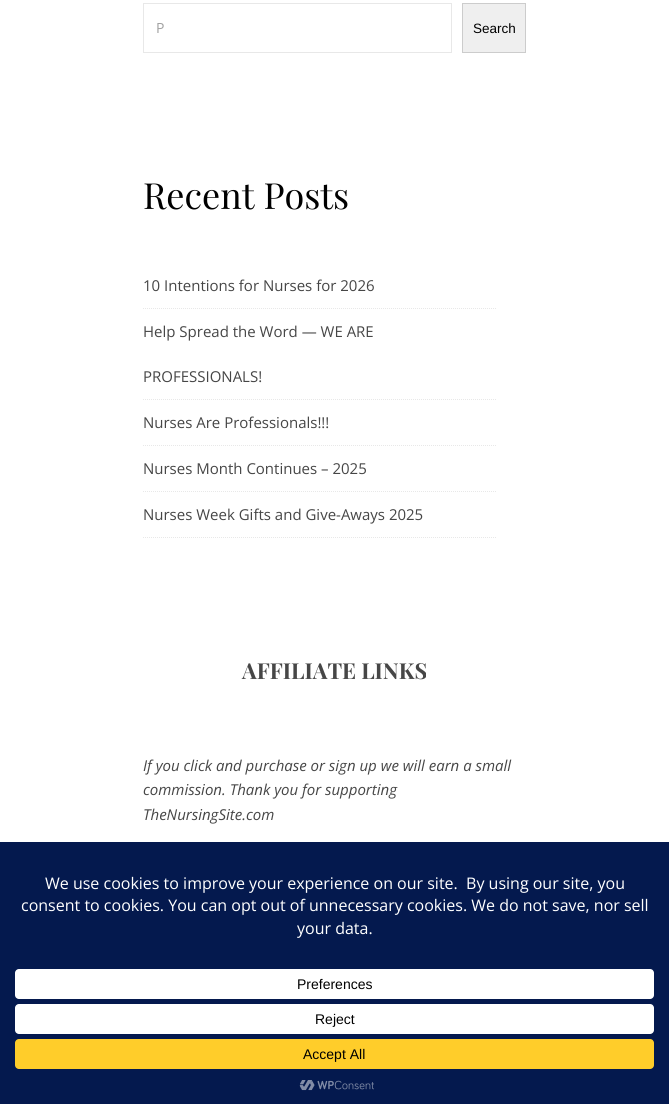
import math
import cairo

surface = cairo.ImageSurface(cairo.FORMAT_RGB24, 669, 1104)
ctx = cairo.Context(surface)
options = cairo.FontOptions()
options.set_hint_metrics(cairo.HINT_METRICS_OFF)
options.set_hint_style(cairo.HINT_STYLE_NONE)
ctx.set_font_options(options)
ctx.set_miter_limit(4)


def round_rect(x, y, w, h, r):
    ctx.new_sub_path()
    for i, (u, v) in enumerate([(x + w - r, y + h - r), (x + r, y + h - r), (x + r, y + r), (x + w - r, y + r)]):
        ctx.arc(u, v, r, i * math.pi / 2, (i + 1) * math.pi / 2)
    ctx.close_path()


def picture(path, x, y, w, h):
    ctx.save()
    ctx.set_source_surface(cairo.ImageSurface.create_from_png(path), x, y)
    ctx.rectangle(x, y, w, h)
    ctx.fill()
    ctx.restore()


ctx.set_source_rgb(1, 1, 1)
ctx.paint()
ctx.rectangle(143.5, 3.5, 308, 49)
ctx.set_source_rgb(0.91, 0.91, 0.91)
ctx.set_line_width(1)
ctx.stroke()
ctx.select_font_face("Open Sans")
ctx.set_font_size(14)
ctx.set_source_rgb(0.631, 0.631, 0.631)
ctx.move_to(156, 33)
ctx.show_text("P")
ctx.set_source_rgb(0.937, 0.937, 0.937)
ctx.rectangle(462.5, 3.5, 63, 49)
ctx.fill_preserve()
ctx.set_source_rgb(0.8, 0.8, 0.8)
ctx.stroke()
ctx.select_font_face("Liberation Sans")
ctx.set_font_size(13.5)
ctx.set_source_rgb(0, 0, 0)
ctx.move_to(473, 33)
ctx.show_text("Search")
ctx.select_font_face("Playfair Display")
ctx.set_font_size(36)
ctx.move_to(143, 209)
ctx.show_text("Recent Posts")
ctx.new_path()
ctx.move_to(143, 308.5)
ctx.line_to(496, 308.5)
ctx.set_source_rgb(0.91, 0.91, 0.91)
ctx.set_dash([1, 1])
ctx.stroke()
ctx.select_font_face("Open Sans")
ctx.set_font_size(15)
ctx.set_source_rgb(0.275, 0.275, 0.275)
ctx.move_to(143, 291)
ctx.show_text("10 Intentions for Nurses for 2026")
ctx.new_path()
ctx.move_to(143, 399.5)
ctx.line_to(496, 399.5)
ctx.set_source_rgb(0.91, 0.91, 0.91)
ctx.stroke()
ctx.set_source_rgb(0.275, 0.275, 0.275)
ctx.move_to(143, 337)
ctx.show_text("Help Spread the Word — WE ARE")
ctx.move_to(143, 382)
ctx.show_text("PROFESSIONALS!")
ctx.new_path()
ctx.move_to(143, 445.5)
ctx.line_to(496, 445.5)
ctx.set_source_rgb(0.91, 0.91, 0.91)
ctx.stroke()
ctx.set_source_rgb(0.275, 0.275, 0.275)
ctx.move_to(143, 428)
ctx.show_text("Nurses Are Professionals!!!")
ctx.new_path()
ctx.move_to(143, 491.5)
ctx.line_to(496, 491.5)
ctx.set_source_rgb(0.91, 0.91, 0.91)
ctx.stroke()
ctx.set_source_rgb(0.275, 0.275, 0.275)
ctx.move_to(143, 474)
ctx.show_text("Nurses Month Continues – 2025")
ctx.new_path()
ctx.move_to(143, 537.5)
ctx.line_to(496, 537.5)
ctx.set_source_rgb(0.91, 0.91, 0.91)
ctx.stroke()
ctx.set_source_rgb(0.275, 0.275, 0.275)
ctx.move_to(143, 520)
ctx.show_text("Nurses Week Gifts and Give-Aways 2025")
ctx.select_font_face("Playfair Display", cairo.FONT_SLANT_NORMAL, cairo.FONT_WEIGHT_BOLD)
ctx.set_font_size(22)
ctx.move_to(242, 679)
ctx.show_text("AFFILIATE LINKS")
ctx.select_font_face("Open Sans", cairo.FONT_SLANT_ITALIC)
ctx.set_font_size(15)
ctx.move_to(143, 771)
ctx.show_text("If you click and purchase or sign up we will earn a small")
ctx.move_to(143, 795)
ctx.show_text("commission. Thank you for supporting")
ctx.move_to(143, 820)
ctx.show_text("TheNursingSite.com")
ctx.set_source_rgb(0.016, 0.098, 0.306)
ctx.rectangle(0, 842, 669, 262)
ctx.fill()
ctx.select_font_face("Open Sans")
ctx.set_font_size(16)
ctx.set_source_rgb(1, 1, 1)
ctx.move_to(45, 889)
ctx.show_text("We use cookies to improve your experience on our site.  By using our site, you")
ctx.move_to(21, 911)
ctx.show_text("consent to cookies. You can opt out of unnecessary cookies. We do not save, nor sell")
ctx.move_to(297, 934)
ctx.show_text("your data.")
round_rect(15, 969, 639, 30, 4)
ctx.fill()
ctx.select_font_face("Liberation Sans")
ctx.set_font_size(14)
ctx.set_source_rgb(0, 0, 0)
ctx.move_to(297, 989)
ctx.show_text("Preferences")
ctx.set_source_rgb(1, 1, 1)
round_rect(15, 1004, 639, 30, 4)
ctx.fill()
ctx.set_source_rgb(0, 0, 0)
ctx.move_to(315, 1024)
ctx.show_text("Reject")
ctx.set_source_rgb(1, 0.804, 0.165)
round_rect(15, 1039, 639, 30, 4)
ctx.fill()
ctx.set_source_rgb(0, 0, 0)
ctx.move_to(303, 1059)
ctx.show_text("Accept All")
picture("img1.png", 299, 1080, 75, 11)
surface.write_to_png("page.png")
